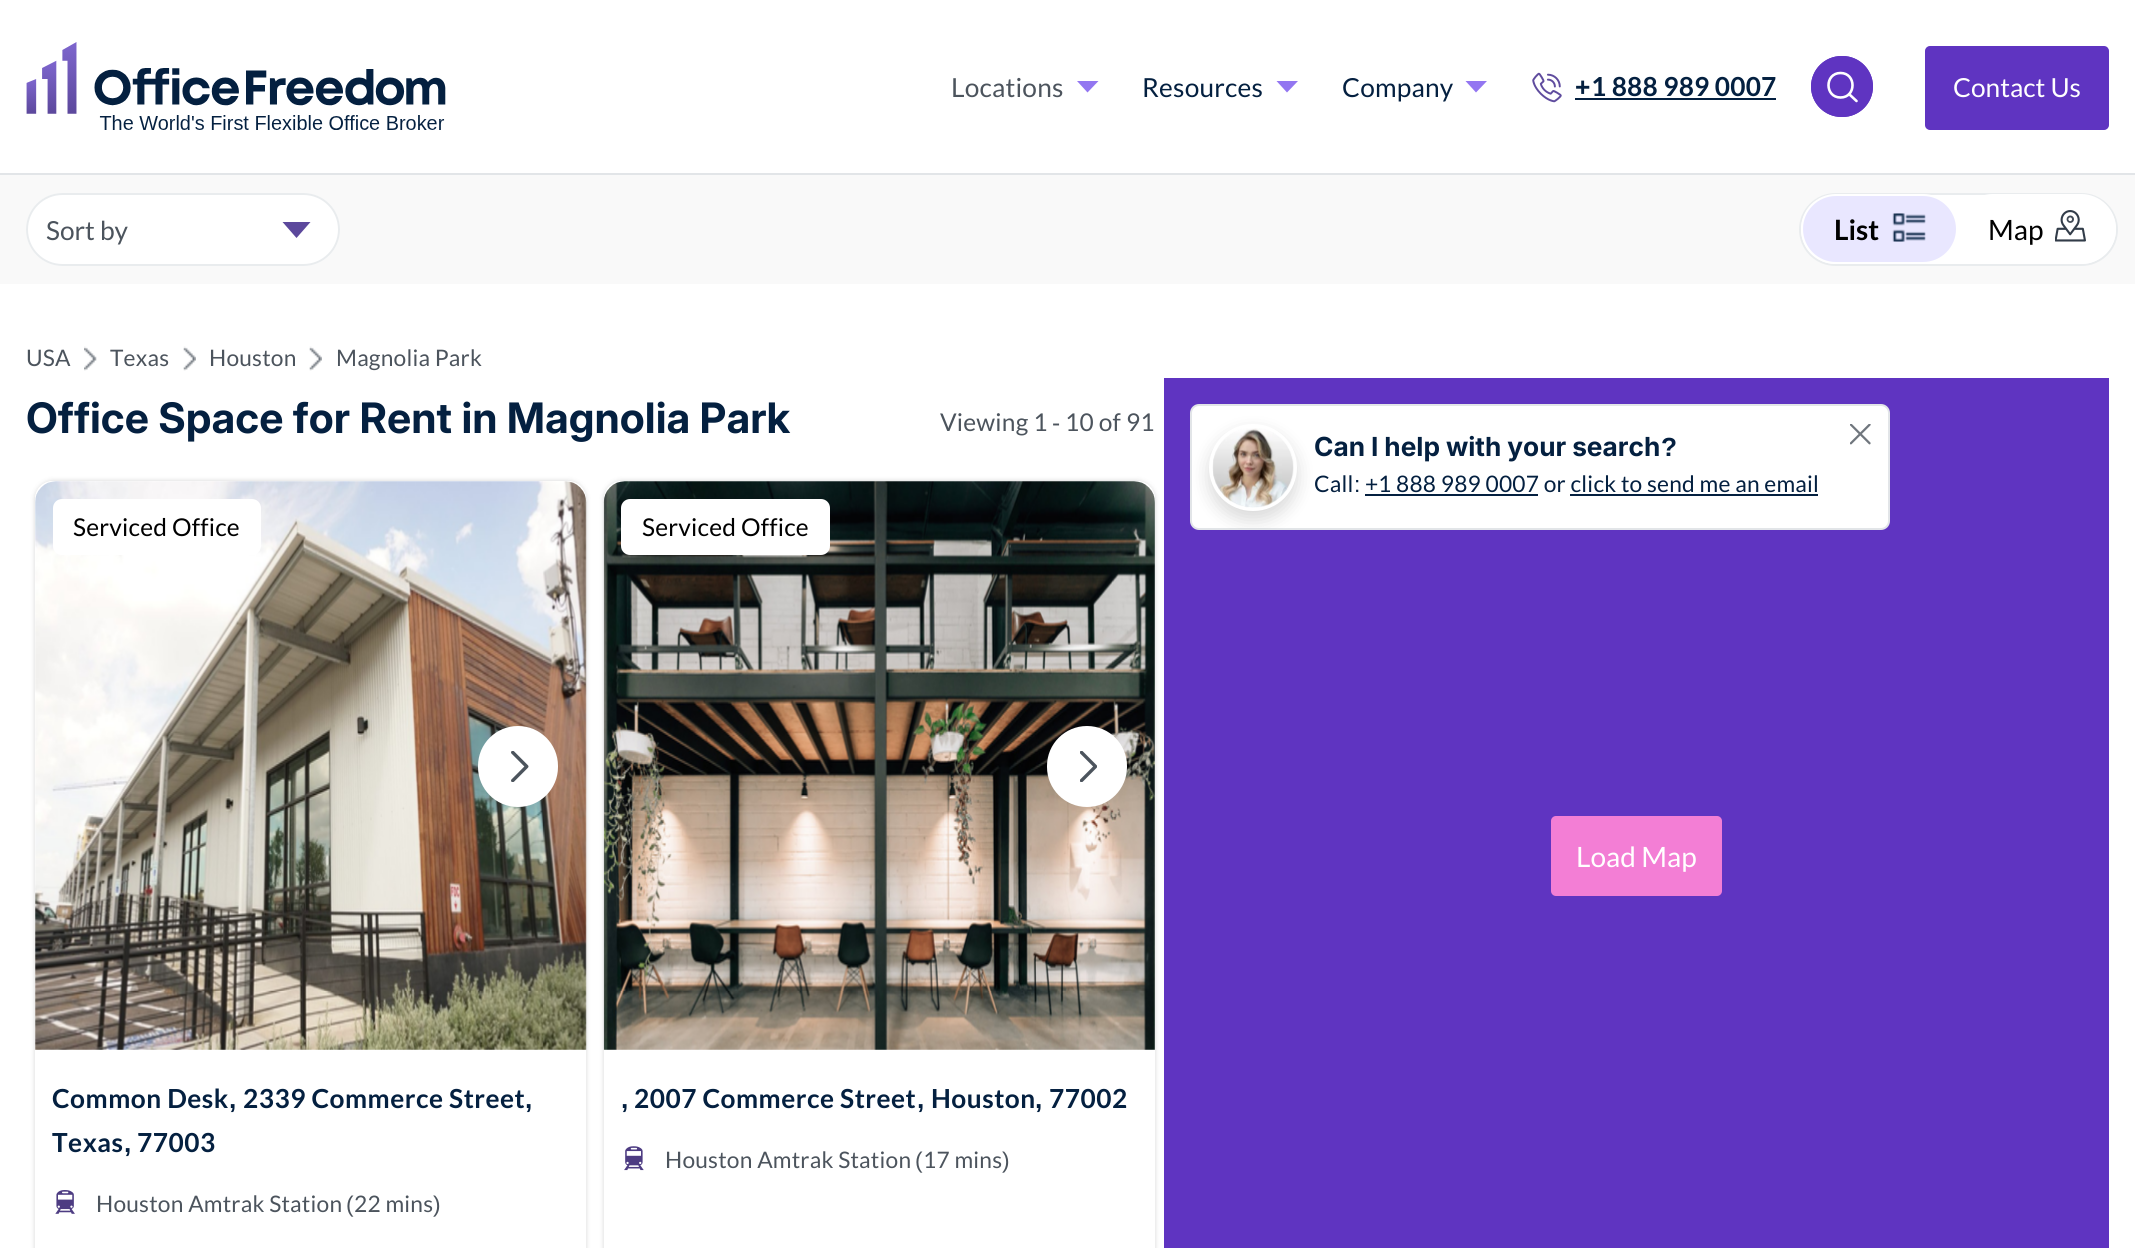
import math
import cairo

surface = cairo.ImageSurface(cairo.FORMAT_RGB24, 2135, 1248)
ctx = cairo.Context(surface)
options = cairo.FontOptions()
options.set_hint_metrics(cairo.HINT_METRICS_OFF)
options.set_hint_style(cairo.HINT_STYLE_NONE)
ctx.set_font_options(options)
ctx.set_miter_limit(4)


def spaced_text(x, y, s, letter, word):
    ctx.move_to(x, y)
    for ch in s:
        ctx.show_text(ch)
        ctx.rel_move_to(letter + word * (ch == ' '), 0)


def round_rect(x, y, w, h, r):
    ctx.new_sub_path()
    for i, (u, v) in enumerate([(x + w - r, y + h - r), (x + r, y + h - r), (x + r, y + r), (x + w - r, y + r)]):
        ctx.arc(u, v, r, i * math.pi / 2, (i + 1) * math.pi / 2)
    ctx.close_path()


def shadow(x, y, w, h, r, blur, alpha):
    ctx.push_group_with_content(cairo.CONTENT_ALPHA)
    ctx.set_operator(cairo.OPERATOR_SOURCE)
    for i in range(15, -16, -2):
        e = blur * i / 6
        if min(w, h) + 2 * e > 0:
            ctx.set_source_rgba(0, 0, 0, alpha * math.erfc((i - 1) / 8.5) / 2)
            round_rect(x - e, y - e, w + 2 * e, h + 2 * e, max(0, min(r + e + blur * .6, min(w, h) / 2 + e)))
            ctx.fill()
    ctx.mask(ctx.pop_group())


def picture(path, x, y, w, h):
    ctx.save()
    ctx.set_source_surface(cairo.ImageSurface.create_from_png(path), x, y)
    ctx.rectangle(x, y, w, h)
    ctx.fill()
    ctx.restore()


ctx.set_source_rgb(1, 1, 1)
ctx.paint()
ctx.set_source_rgb(0.886, 0.898, 0.91)
ctx.rectangle(0, 173, 2135, 2)
ctx.fill()
picture("img1.png", 26, 42, 420, 88)
ctx.select_font_face("Lato")
ctx.set_font_size(26.25)
ctx.set_source_rgb(0.298, 0.329, 0.365)
spaced_text(951, 97, "Locations", 0.2, 0)
ctx.set_source_rgb(0.576, 0.463, 0.945)
ctx.set_fill_rule(cairo.FILL_RULE_EVEN_ODD)
ctx.new_path()
ctx.move_to(1098.5, 81)
ctx.line_to(1087.5, 92.5)
ctx.line_to(1077, 81)
ctx.close_path()
ctx.fill()
ctx.set_source_rgb(0.016, 0.125, 0.251)
spaced_text(1142, 97, "Resources", 0.2, 0)
ctx.set_source_rgb(0.576, 0.463, 0.945)
ctx.new_path()
ctx.move_to(1298, 81)
ctx.line_to(1287, 92.5)
ctx.line_to(1276.5, 81)
ctx.close_path()
ctx.fill()
ctx.set_source_rgb(0.016, 0.125, 0.251)
spaced_text(1342, 97, "Company", 0.2, 0)
ctx.set_source_rgb(0.576, 0.463, 0.945)
ctx.new_path()
ctx.move_to(1487, 81)
ctx.line_to(1476, 92.5)
ctx.line_to(1465.5, 81)
ctx.close_path()
ctx.fill()
picture("img2.png", 1532, 72, 30, 31)
ctx.select_font_face("Liberation Sans", cairo.FONT_SLANT_NORMAL, cairo.FONT_WEIGHT_BOLD)
ctx.set_source_rgb(0.016, 0.125, 0.251)
spaced_text(1575, 96, "+", 0.2, 0)
ctx.rectangle(1575, 98, 201, 2)
ctx.fill()
ctx.select_font_face("Lato", cairo.FONT_SLANT_NORMAL, cairo.FONT_WEIGHT_BOLD)
spaced_text(1591, 96, "1 888 989 0007", 0.2, 0)
ctx.set_source_rgb(0.373, 0.204, 0.757)
round_rect(1811, 56, 62, 61, 30.5)
ctx.fill()
ctx.new_path()
ctx.move_to(1840.5, 97.5)
ctx.curve_to(1856.5, 97.5, 1856.5, 73, 1840.5, 73)
ctx.curve_to(1824.5, 73, 1824.5, 97.5, 1840.5, 97.5)
ctx.close_path()
ctx.move_to(1849, 94)
ctx.line_to(1856.5, 101)
ctx.set_source_rgb(1, 1, 1)
ctx.set_line_width(2.6)
ctx.set_line_cap(cairo.LINE_CAP_ROUND)
ctx.set_line_join(cairo.LINE_JOIN_ROUND)
ctx.stroke()
round_rect(1812, 57, 60, 59, 29.5)
ctx.set_source_rgb(0.373, 0.204, 0.757)
ctx.set_line_width(2)
ctx.set_line_cap(cairo.LINE_CAP_BUTT)
ctx.set_line_join(cairo.LINE_JOIN_MITER)
ctx.stroke()
round_rect(1926, 47, 182, 82, 4)
ctx.fill_preserve()
ctx.stroke()
ctx.select_font_face("Lato")
ctx.set_source_rgb(1, 1, 1)
ctx.move_to(1953, 97)
ctx.show_text("Contact Us")
ctx.set_source_rgb(0.973, 0.973, 0.973)
ctx.rectangle(0, 175, 2135, 109)
ctx.fill()
ctx.set_source_rgb(1, 1, 1)
round_rect(26, 193, 314, 73, 36.5)
ctx.fill()
ctx.set_source_rgb(0.361, 0.282, 0.612)
ctx.new_path()
ctx.move_to(282.5, 222)
ctx.line_to(310.5, 222)
ctx.line_to(296.5, 238)
ctx.close_path()
ctx.fill()
round_rect(27, 194, 312, 71, 35.5)
ctx.set_source_rgb(0.914, 0.922, 0.933)
ctx.stroke()
ctx.set_source_rgb(0.298, 0.329, 0.365)
ctx.move_to(46, 240)
ctx.show_text("Sort by")
ctx.set_source_rgb(1, 1, 1)
round_rect(1800, 194, 317, 71, 35.5)
ctx.fill_preserve()
ctx.set_source_rgb(0.914, 0.922, 0.933)
ctx.stroke()
ctx.set_source_rgb(0.914, 0.906, 1)
round_rect(1802, 195, 155, 68, 34)
ctx.fill_preserve()
ctx.set_source_rgb(1, 1, 1)
ctx.stroke()
ctx.select_font_face("Lato", cairo.FONT_SLANT_NORMAL, cairo.FONT_WEIGHT_BOLD)
ctx.set_font_size(28)
ctx.set_source_rgb(0, 0, 0)
ctx.move_to(1834, 240)
ctx.show_text("List")
picture("img3.png", 1892, 213, 34, 29)
ctx.set_source_rgb(1, 1, 1)
round_rect(1959, 195, 156, 68, 34)
ctx.fill_preserve()
ctx.stroke()
ctx.select_font_face("Lato")
ctx.set_source_rgb(0, 0, 0)
ctx.move_to(1988, 240)
ctx.show_text("Map")
picture("img4.png", 2055, 210, 31, 32)
ctx.set_font_size(22.75)
ctx.set_source_rgb(0.298, 0.329, 0.365)
spaced_text(26, 366, "USA", 0.2, 0)
picture("img5.png", 84, 346, 13, 25)
spaced_text(110, 366, "Texas", 0.2, 0)
picture("img6.png", 183, 346, 13, 25)
spaced_text(209, 366, "Houston", 0.2, 0)
picture("img7.png", 309, 346, 13, 25)
spaced_text(336, 366, "Magnolia Park", 0.2, 0)
ctx.select_font_face("Inter", cairo.FONT_SLANT_NORMAL, cairo.FONT_WEIGHT_BOLD)
ctx.set_font_size(42)
ctx.set_source_rgb(0.016, 0.125, 0.251)
ctx.move_to(26, 433)
ctx.show_text("Office Space for Rent in Magnolia Park")
ctx.select_font_face("Lato")
ctx.set_font_size(24.5)
ctx.set_source_rgb(0.298, 0.329, 0.365)
spaced_text(940, 431, "Viewing 1", 0.2, 0)
ctx.select_font_face("Liberation Sans")
spaced_text(1052, 431, "-", 0.2, 0)
ctx.select_font_face("Lato")
spaced_text(1065, 431, "10 of 91", 0.2, 0)
ctx.save()
ctx.new_path()
ctx.move_to(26, 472)
ctx.line_to(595, 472)
ctx.line_to(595, 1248)
ctx.line_to(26, 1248)
ctx.close_path()
ctx.move_to(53, 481)
ctx.line_to(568, 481)
ctx.curve_to(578, 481, 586, 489, 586, 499)
ctx.line_to(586, 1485)
ctx.curve_to(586, 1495, 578, 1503, 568, 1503)
ctx.line_to(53, 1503)
ctx.curve_to(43, 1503, 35, 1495, 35, 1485)
ctx.line_to(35, 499)
ctx.curve_to(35, 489, 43, 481, 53, 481)
ctx.close_path()
ctx.clip()
ctx.set_source_rgb(0.129, 0.129, 0.129)
shadow(35, 481, 551, 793, 18, 2.5, 0.2)
ctx.restore()
picture("img8.png", 35, 481, 552, 569)
ctx.set_source_rgb(1, 1, 1)
round_rect(478, 726, 80, 81, 40)
ctx.fill()
picture("img9.png", 511, 751, 18, 31)
round_rect(53, 499, 208, 56, 9)
ctx.fill()
ctx.set_source_rgb(0, 0, 0)
spaced_text(73, 536, "Serviced Office", 0.2, 0)
ctx.select_font_face("Lato", cairo.FONT_SLANT_NORMAL, cairo.FONT_WEIGHT_BOLD)
ctx.set_font_size(26.25)
ctx.set_source_rgb(0.016, 0.125, 0.251)
spaced_text(52, 1108, "Common Desk", 0.5, 0)
ctx.select_font_face("Liberation Sans", cairo.FONT_SLANT_NORMAL, cairo.FONT_WEIGHT_BOLD)
spaced_text(229, 1108, ",", 0.5, 0)
ctx.select_font_face("Lato", cairo.FONT_SLANT_NORMAL, cairo.FONT_WEIGHT_BOLD)
spaced_text(243, 1108, "2339 Commerce Street", 0.5, 0)
ctx.select_font_face("Liberation Sans", cairo.FONT_SLANT_NORMAL, cairo.FONT_WEIGHT_BOLD)
spaced_text(525, 1108, ",", 0.5, 0)
ctx.select_font_face("Lato", cairo.FONT_SLANT_NORMAL, cairo.FONT_WEIGHT_BOLD)
spaced_text(52, 1152, "Texas", 0.5, 0)
ctx.select_font_face("Liberation Sans", cairo.FONT_SLANT_NORMAL, cairo.FONT_WEIGHT_BOLD)
spaced_text(124, 1152, ",", 0.5, 0)
ctx.select_font_face("Lato", cairo.FONT_SLANT_NORMAL, cairo.FONT_WEIGHT_BOLD)
spaced_text(137, 1152, "77003", 0.5, 0)
picture("img10.png", 55, 1190, 20, 24)
ctx.select_font_face("Lato")
ctx.set_font_size(22.75)
ctx.set_source_rgb(0.298, 0.329, 0.365)
spaced_text(96, 1212, "Houston Amtrak Station", 0.2, 0)
ctx.select_font_face("Liberation Sans")
spaced_text(346, 1212, "(", 0.2, 0)
ctx.select_font_face("Lato")
spaced_text(354, 1212, "22 mins", 0.2, 0)
ctx.select_font_face("Liberation Sans")
spaced_text(433, 1212, ")", 0.2, 0)
ctx.save()
ctx.new_path()
ctx.move_to(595, 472)
ctx.line_to(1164, 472)
ctx.line_to(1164, 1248)
ctx.line_to(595, 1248)
ctx.close_path()
ctx.move_to(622, 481)
ctx.line_to(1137, 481)
ctx.curve_to(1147, 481, 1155, 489, 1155, 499)
ctx.line_to(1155, 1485)
ctx.curve_to(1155, 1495, 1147, 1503, 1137, 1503)
ctx.line_to(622, 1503)
ctx.curve_to(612, 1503, 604, 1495, 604, 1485)
ctx.line_to(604, 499)
ctx.curve_to(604, 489, 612, 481, 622, 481)
ctx.close_path()
ctx.clip()
ctx.set_source_rgb(0.129, 0.129, 0.129)
shadow(604, 481, 551, 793, 18, 2.5, 0.2)
ctx.restore()
picture("img11.png", 603, 481, 552, 569)
ctx.set_source_rgb(1, 1, 1)
round_rect(1047, 726, 80, 81, 40)
ctx.fill()
picture("img12.png", 1080, 751, 17, 31)
round_rect(621, 499, 209, 56, 9)
ctx.fill()
ctx.select_font_face("Lato")
ctx.set_font_size(24.5)
ctx.set_source_rgb(0, 0, 0)
spaced_text(642, 536, "Serviced Office", 0.2, 0)
ctx.select_font_face("Liberation Sans", cairo.FONT_SLANT_NORMAL, cairo.FONT_WEIGHT_BOLD)
ctx.set_font_size(26.25)
ctx.set_source_rgb(0.016, 0.125, 0.251)
spaced_text(621, 1108, ",", 0.5, 0)
ctx.select_font_face("Lato", cairo.FONT_SLANT_NORMAL, cairo.FONT_WEIGHT_BOLD)
spaced_text(634, 1108, "2007 Commerce Street", 0.5, 0)
ctx.select_font_face("Liberation Sans", cairo.FONT_SLANT_NORMAL, cairo.FONT_WEIGHT_BOLD)
spaced_text(917, 1108, ",", 0.5, 0)
ctx.select_font_face("Lato", cairo.FONT_SLANT_NORMAL, cairo.FONT_WEIGHT_BOLD)
spaced_text(931, 1108, "Houston", 0.5, 0)
ctx.select_font_face("Liberation Sans", cairo.FONT_SLANT_NORMAL, cairo.FONT_WEIGHT_BOLD)
spaced_text(1035, 1108, ",", 0.5, 0)
ctx.select_font_face("Lato", cairo.FONT_SLANT_NORMAL, cairo.FONT_WEIGHT_BOLD)
spaced_text(1049, 1108, "77002", 0.5, 0)
picture("img13.png", 624, 1146, 20, 25)
ctx.select_font_face("Lato")
ctx.set_font_size(22.75)
ctx.set_source_rgb(0.298, 0.329, 0.365)
spaced_text(665, 1168, "Houston Amtrak Station", 0.2, 0)
ctx.select_font_face("Liberation Sans")
spaced_text(915, 1168, "(", 0.2, 0)
ctx.select_font_face("Lato")
spaced_text(923, 1168, "17 mins", 0.2, 0)
ctx.select_font_face("Liberation Sans")
spaced_text(1002, 1168, ")", 0.2, 0)
ctx.set_source_rgb(0.373, 0.204, 0.757)
ctx.rectangle(1164, 378, 945, 870)
ctx.fill()
ctx.set_source_rgb(1, 1, 1)
round_rect(1191, 405, 698, 124, 8)
ctx.fill_preserve()
ctx.set_source_rgb(0.886, 0.898, 0.91)
ctx.stroke()
ctx.save()
ctx.set_fill_rule(cairo.FILL_RULE_WINDING)
round_rect(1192, 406, 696, 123, 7)
ctx.clip()
ctx.set_source_rgb(0, 0, 0)
shadow(1209, 432, 88, 88, 44, 9, 0.15)
ctx.restore()
round_rect(1211, 426, 84, 83, 41.5)
ctx.set_source_rgb(1, 1, 1)
ctx.set_line_width(4)
ctx.stroke()
picture("img14.png", 1212, 428, 82, 80)
ctx.select_font_face("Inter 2", cairo.FONT_SLANT_NORMAL, cairo.FONT_WEIGHT_BOLD)
ctx.set_font_size(26.25)
ctx.set_source_rgb(0.016, 0.125, 0.251)
spaced_text(1314, 456, "Can I help with your search", 0, -0.25)
ctx.select_font_face("Liberation Sans", cairo.FONT_SLANT_NORMAL, cairo.FONT_WEIGHT_BOLD)
ctx.move_to(1661, 456)
ctx.show_text("?")
ctx.select_font_face("Lato")
ctx.set_font_size(22.75)
spaced_text(1314, 492, "Call", 0.2, 0)
ctx.select_font_face("Liberation Sans")
spaced_text(1354, 492, ":", 0.2, 0)
spaced_text(1365, 492, "+", 0.2, 0)
ctx.rectangle(1365, 494, 173, 2)
ctx.fill()
ctx.select_font_face("Lato")
spaced_text(1378, 492, "1 888 989 0007 or click to send me an email", 0.2, 0)
ctx.rectangle(1570, 494, 248, 2)
ctx.fill()
picture("img15.png", 1850, 424, 21, 21)
ctx.set_source_rgb(0.953, 0.494, 0.835)
round_rect(1551, 816, 171, 80, 5)
ctx.fill()
ctx.set_font_size(28)
ctx.set_source_rgb(1, 1, 1)
ctx.move_to(1576, 867)
ctx.show_text("Load Map")
surface.write_to_png("page.png")
